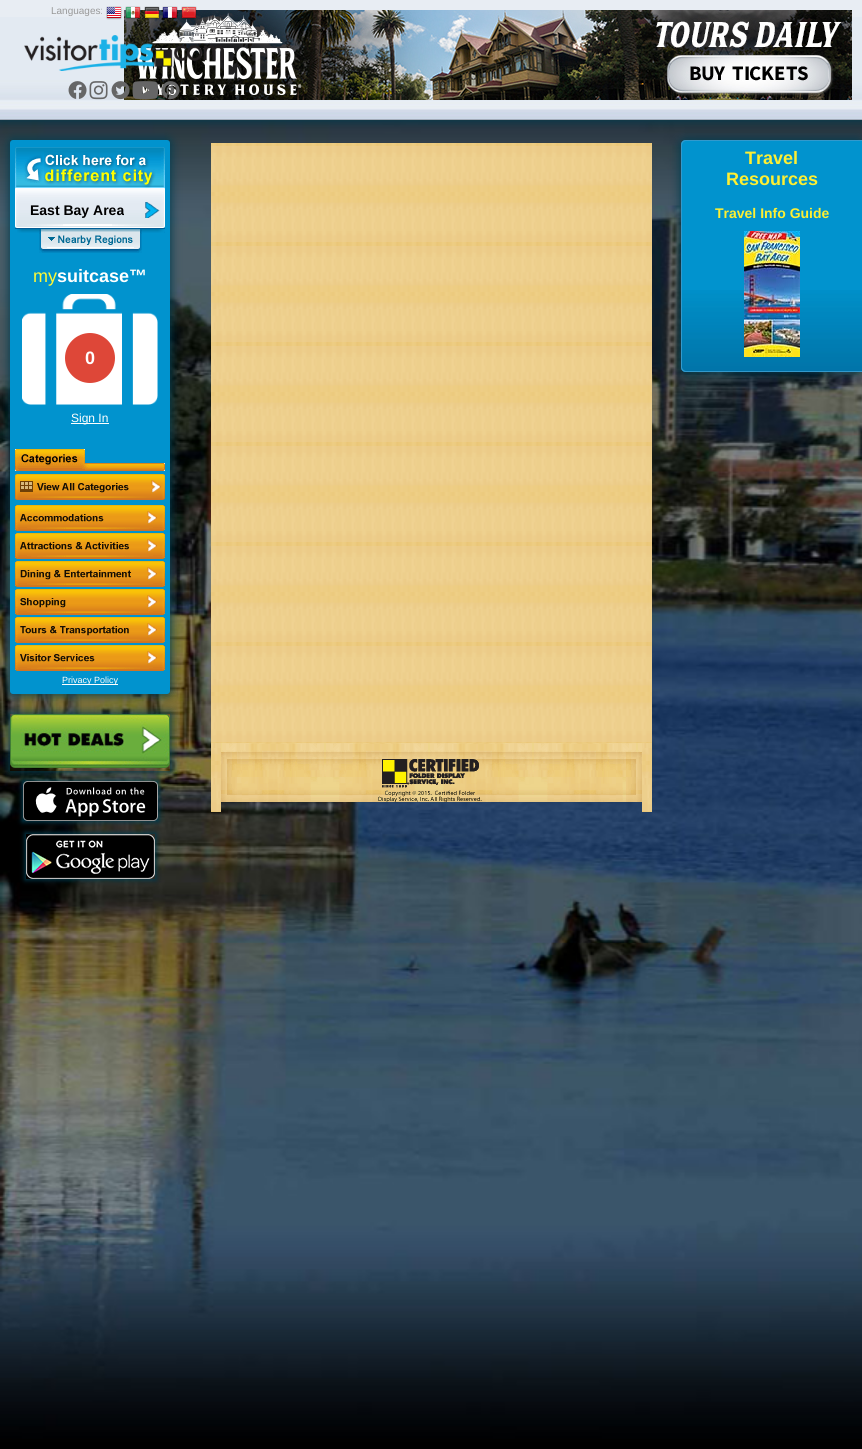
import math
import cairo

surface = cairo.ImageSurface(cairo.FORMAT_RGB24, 862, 1449)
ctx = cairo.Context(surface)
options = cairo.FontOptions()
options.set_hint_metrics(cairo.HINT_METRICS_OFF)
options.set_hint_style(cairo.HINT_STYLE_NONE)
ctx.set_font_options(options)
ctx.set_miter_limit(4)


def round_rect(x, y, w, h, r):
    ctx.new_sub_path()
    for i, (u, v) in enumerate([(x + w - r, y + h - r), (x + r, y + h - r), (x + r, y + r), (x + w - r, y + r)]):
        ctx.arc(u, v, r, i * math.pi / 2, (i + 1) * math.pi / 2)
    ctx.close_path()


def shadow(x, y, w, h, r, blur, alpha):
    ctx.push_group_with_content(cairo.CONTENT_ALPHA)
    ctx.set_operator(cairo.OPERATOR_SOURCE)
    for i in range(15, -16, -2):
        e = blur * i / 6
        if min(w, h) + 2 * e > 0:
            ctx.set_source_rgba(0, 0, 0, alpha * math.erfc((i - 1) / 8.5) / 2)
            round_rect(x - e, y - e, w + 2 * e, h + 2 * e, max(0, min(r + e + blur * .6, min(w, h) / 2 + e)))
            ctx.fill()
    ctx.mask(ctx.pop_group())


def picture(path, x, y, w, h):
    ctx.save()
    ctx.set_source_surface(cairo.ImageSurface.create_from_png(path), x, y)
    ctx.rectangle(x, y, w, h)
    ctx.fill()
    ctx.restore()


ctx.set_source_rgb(1, 1, 1)
ctx.paint()
picture("img14.png", 0, 120, 862, 1329)
ctx.set_source_rgb(0, 0.235, 0.314)
shadow(-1, -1, 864, 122, 0, 5, 1)
ctx.set_source_rgb(0.91, 0.929, 0.953)
ctx.rectangle(0, 0, 862, 17)
ctx.fill()
picture("img1.png", 0, 17, 862, 103)
ctx.select_font_face("Liberation Sans")
ctx.set_font_size(10)
ctx.set_source_rgb(0.6, 0.6, 0.6)
ctx.move_to(51, 14)
ctx.show_text("Languages:")
picture("img2.png", 106, 6, 16, 14)
picture("img7.png", 124, 10, 728, 90)
picture("img3.png", 125, 6, 16, 14)
picture("img4.png", 144, 6, 16, 14)
picture("img5.png", 162, 6, 16, 13)
picture("img6.png", 181, 6, 16, 14)
picture("img8.png", 24, 35, 200, 36)
picture("img9.png", 68, 81, 19, 18)
picture("img10.png", 89, 81, 19, 19)
picture("img11.png", 111, 81, 19, 19)
picture("img12.png", 132, 81, 27, 19)
picture("img13.png", 161, 81, 19, 19)
picture("img15.png", 211, 143, 441, 100)
picture("img15.png", 211, 243, 441, 100)
picture("img15.png", 211, 343, 441, 100)
picture("img15.png", 211, 443, 441, 100)
picture("img15.png", 211, 543, 441, 100)
picture("img15.png", 211, 643, 441, 100)
picture("img16.png", 211, 743, 10, 69)
picture("img16.png", 642, 743, 10, 69)
picture("img17.png", 221, 743, 421, 59)
picture("img18.png", 221, 752, 16, 50)
picture("img19.png", 626, 752, 16, 50)
picture("img20.png", 378, 759, 104, 43)
ctx.set_source_rgb(0, 0.235, 0.314)
shadow(680, 139, 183, 234, 6, 5, 1)
ctx.set_source_rgb(0.004, 0.576, 0.808)
ctx.new_path()
ctx.move_to(686, 140)
ctx.line_to(862, 140)
ctx.line_to(862, 372)
ctx.line_to(686, 372)
ctx.curve_to(683, 372, 681, 370, 681, 367)
ctx.line_to(681, 145)
ctx.curve_to(681, 142, 683, 140, 686, 140)
ctx.close_path()
ctx.fill()
picture("img21.png", 681, 290, 181, 81)
ctx.set_source_rgb(0.2, 0.6, 0.8)
ctx.set_fill_rule(cairo.FILL_RULE_EVEN_ODD)
ctx.new_path()
ctx.move_to(686, 140)
ctx.line_to(862, 140)
ctx.line_to(862, 372)
ctx.line_to(686, 372)
ctx.curve_to(683, 372, 681, 370, 681, 367)
ctx.line_to(681, 145)
ctx.curve_to(681, 142, 683, 140, 686, 140)
ctx.close_path()
ctx.move_to(686, 141)
ctx.line_to(862, 141)
ctx.line_to(862, 371)
ctx.line_to(686, 371)
ctx.curve_to(684, 371, 682, 369, 682, 367)
ctx.line_to(682, 145)
ctx.curve_to(682, 143, 684, 141, 686, 141)
ctx.close_path()
ctx.fill()
ctx.select_font_face("Liberation Sans", cairo.FONT_SLANT_NORMAL, cairo.FONT_WEIGHT_BOLD)
ctx.set_font_size(18)
ctx.set_source_rgb(0.996, 0.937, 0.196)
ctx.move_to(745, 164)
ctx.show_text("Travel")
ctx.move_to(726, 185)
ctx.show_text("Resources")
ctx.set_font_size(14)
ctx.move_to(715, 218)
ctx.show_text("Travel Info Guide")
picture("img22.png", 744, 231, 56, 126)
ctx.set_source_rgb(0, 0.235, 0.314)
shadow(9, 139, 162, 556, 4, 5, 1)
ctx.set_source_rgb(0.004, 0.576, 0.808)
round_rect(11, 141, 158, 552, 2)
ctx.fill_preserve()
ctx.stroke()
picture("img23.png", 15, 223, 150, 5)
picture("img24.png", 15, 147, 150, 76)
picture("img25.png", 145, 202, 15, 16)
ctx.set_source_rgb(0, 0, 0)
ctx.move_to(30, 215)
ctx.show_text("East Bay Area")
picture("img26.png", 17, 229, 148, 4)
ctx.set_source_rgb(0, 0.369, 0.592)
ctx.rectangle(15, 228, 150, 1)
ctx.fill()
picture("img27.png", 39, 229, 103, 24)
ctx.select_font_face("Liberation Sans")
ctx.set_font_size(18)
ctx.set_source_rgb(1, 0.973, 0.208)
ctx.move_to(33, 282)
ctx.show_text("my")
ctx.select_font_face("Liberation Sans", cairo.FONT_SLANT_NORMAL, cairo.FONT_WEIGHT_BOLD)
ctx.set_source_rgb(1, 1, 1)
ctx.move_to(57, 282)
ctx.show_text("suitcase™")
picture("img28.png", 22, 294, 136, 111)
ctx.set_source_rgb(0.871, 0.278, 0.22)
ctx.arc(90, 358, 25, 0, 2 * math.pi)
ctx.fill()
ctx.set_source_rgb(1, 1, 1)
ctx.move_to(85, 364)
ctx.show_text("0")
ctx.rectangle(71, 423, 38, 1)
ctx.fill()
ctx.select_font_face("Liberation Sans")
ctx.set_font_size(12)
ctx.move_to(71, 422)
ctx.show_text("Sign In")
picture("img29.png", 15, 449, 150, 22)
picture("img30.png", 15, 474, 150, 26)
picture("img31.png", 15, 505, 150, 26)
picture("img32.png", 20, 514, 84, 8)
picture("img31.png", 15, 533, 150, 26)
picture("img33.png", 20, 542, 109, 8)
picture("img31.png", 15, 561, 150, 26)
picture("img34.png", 20, 570, 111, 10)
picture("img31.png", 15, 589, 150, 26)
picture("img35.png", 20, 598, 46, 10)
picture("img31.png", 15, 617, 150, 26)
picture("img36.png", 20, 626, 109, 10)
picture("img31.png", 15, 645, 150, 26)
picture("img37.png", 20, 654, 75, 8)
ctx.rectangle(62, 684, 56, 1)
ctx.fill()
ctx.set_font_size(9)
ctx.move_to(62, 683)
ctx.show_text("Privacy Policy")
ctx.save()
ctx.new_path()
ctx.move_to(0, 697)
ctx.line_to(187, 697)
ctx.line_to(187, 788)
ctx.line_to(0, 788)
ctx.close_path()
ctx.move_to(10, 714)
ctx.line_to(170, 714)
ctx.line_to(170, 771)
ctx.line_to(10, 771)
ctx.close_path()
ctx.clip()
ctx.set_source_rgb(0, 0.235, 0.314)
shadow(9, 713, 162, 59, 0, 5, 1)
ctx.restore()
picture("img38.png", 10, 714, 160, 54)
ctx.set_source_rgb(0, 0.235, 0.314)
shadow(22, 780, 137, 42, 0, 2.5, 1)
picture("img39.png", 23, 781, 135, 40)
ctx.save()
ctx.new_path()
ctx.move_to(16, 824)
ctx.line_to(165, 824)
ctx.line_to(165, 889)
ctx.line_to(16, 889)
ctx.close_path()
ctx.move_to(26, 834)
ctx.line_to(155, 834)
ctx.line_to(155, 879)
ctx.line_to(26, 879)
ctx.close_path()
ctx.clip()
shadow(25, 833, 131, 47, 0, 2.5, 1)
ctx.restore()
picture("img40.png", 26, 834, 129, 45)
surface.write_to_png("page.png")
